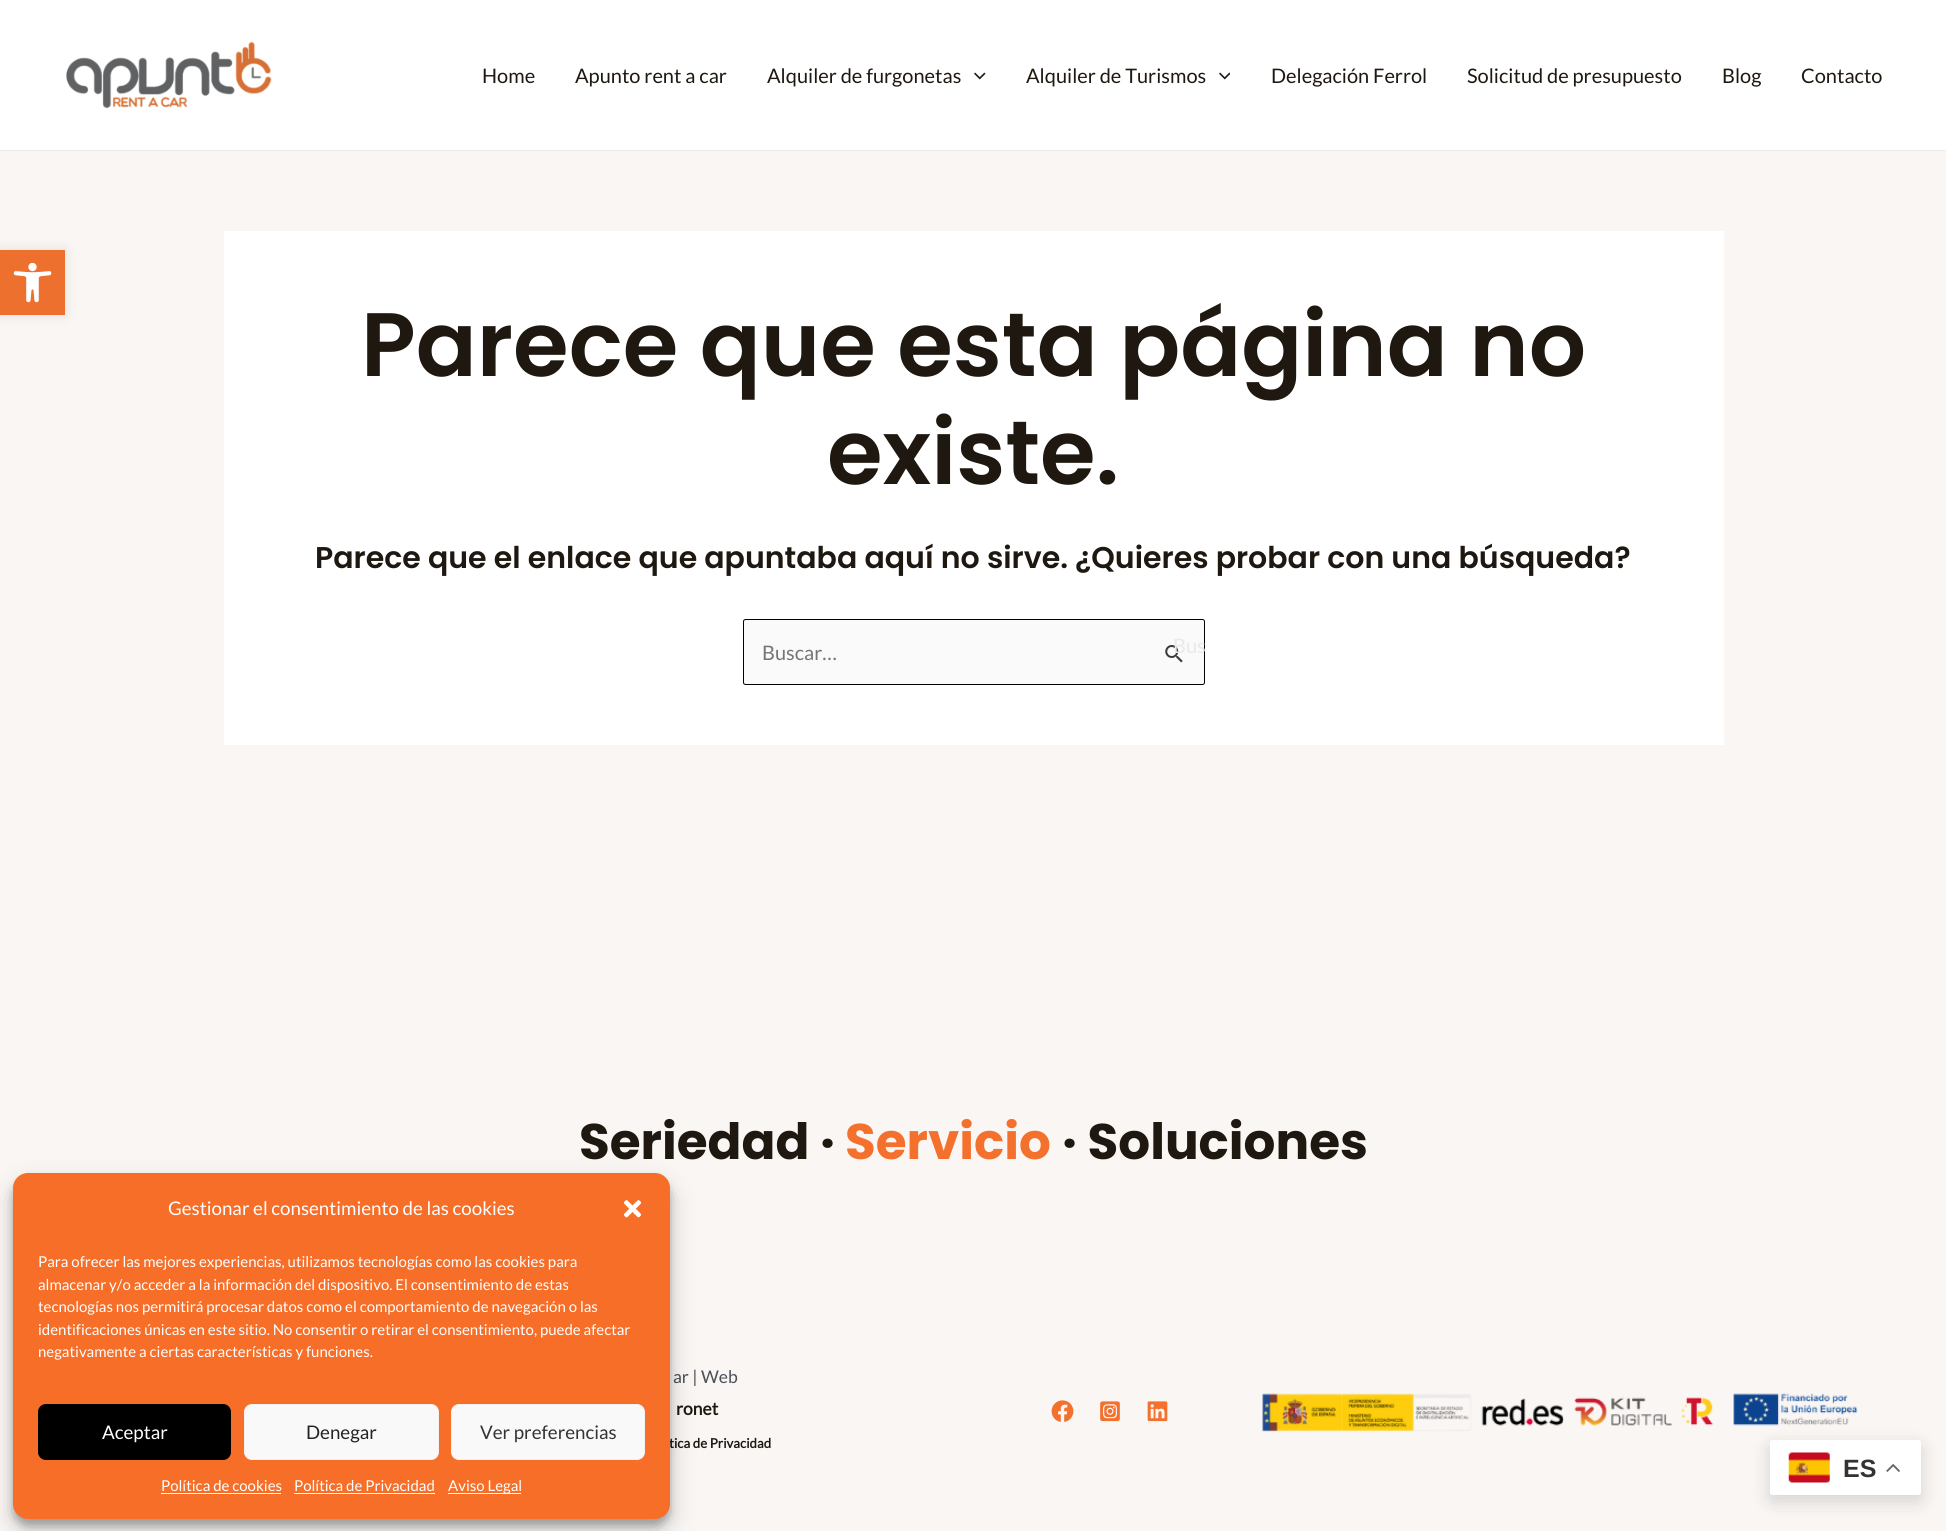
import math
import cairo

surface = cairo.ImageSurface(cairo.FORMAT_RGB24, 1946, 1531)
ctx = cairo.Context(surface)
options = cairo.FontOptions()
options.set_hint_metrics(cairo.HINT_METRICS_OFF)
options.set_hint_style(cairo.HINT_STYLE_NONE)
ctx.set_font_options(options)
ctx.set_miter_limit(4)


def round_rect(x, y, w, h, r):
    ctx.new_sub_path()
    for i, (u, v) in enumerate([(x + w - r, y + h - r), (x + r, y + h - r), (x + r, y + r), (x + w - r, y + r)]):
        ctx.arc(u, v, r, i * math.pi / 2, (i + 1) * math.pi / 2)
    ctx.close_path()


def shadow(x, y, w, h, r, blur, alpha):
    ctx.push_group_with_content(cairo.CONTENT_ALPHA)
    ctx.set_operator(cairo.OPERATOR_SOURCE)
    for i in range(15, -16, -2):
        e = blur * i / 6
        if min(w, h) + 2 * e > 0:
            ctx.set_source_rgba(0, 0, 0, alpha * math.erfc((i - 1) / 8.5) / 2)
            round_rect(x - e, y - e, w + 2 * e, h + 2 * e, max(0, min(r + e + blur * .6, min(w, h) / 2 + e)))
            ctx.fill()
    ctx.mask(ctx.pop_group())


def picture(path, x, y, w, h):
    ctx.save()
    ctx.set_source_surface(cairo.ImageSurface.create_from_png(path), x, y)
    ctx.rectangle(x, y, w, h)
    ctx.fill()
    ctx.restore()


ctx.set_source_rgb(0.973, 0.961, 0.957)
ctx.paint()
ctx.set_source_rgb(0, 0, 0)
shadow(0, 250, 65, 65, 0, 6, 0.1)
ctx.set_source_rgb(0.933, 0.439, 0.18)
ctx.rectangle(0, 250, 65, 65)
ctx.fill()
picture("img1.png", 13, 263, 39, 40)
ctx.set_source_rgb(1, 1, 1)
ctx.rectangle(0, 0, 1946, 150)
ctx.fill()
ctx.set_source_rgb(0.918, 0.918, 0.918)
ctx.rectangle(0, 150, 1946, 1)
ctx.fill()
picture("img2.png", 66, 41, 206, 68)
ctx.select_font_face("Lato")
ctx.set_font_size(20)
ctx.set_source_rgb(0.118, 0.094, 0.063)
ctx.move_to(482, 83)
ctx.show_text("Home")
ctx.move_to(575, 83)
ctx.show_text("Apunto rent a car")
ctx.move_to(767, 83)
ctx.show_text("Alquiler de furgonetas")
picture("img3.png", 974, 72, 12, 8)
ctx.move_to(1026, 83)
ctx.show_text("Alquiler de Turismos")
picture("img4.png", 1219, 72, 11, 8)
ctx.move_to(1271, 83)
ctx.show_text("Delegación Ferrol")
ctx.move_to(1467, 83)
ctx.show_text("Solicitud de presupuesto")
ctx.move_to(1722, 83)
ctx.show_text("Blog")
ctx.move_to(1801, 83)
ctx.show_text("Contacto")
ctx.set_source_rgb(1, 1, 1)
ctx.rectangle(224, 231, 1500, 514)
ctx.fill()
ctx.select_font_face("Poppins SemiBold")
ctx.set_font_size(90)
ctx.set_source_rgb(0.118, 0.094, 0.063)
ctx.move_to(361, 376)
ctx.show_text("Parece que esta página no")
ctx.move_to(827, 484)
ctx.show_text("existe.")
ctx.set_font_size(30)
ctx.move_to(315, 568)
ctx.show_text("Parece que el enlace que apuntaba aquí no sirve. ¿Quieres probar con una búsqueda?")
ctx.set_source_rgb(0.98, 0.98, 0.98)
round_rect(743.5, 619.5, 461, 65, 2)
ctx.fill_preserve()
ctx.set_source_rgb(0, 0, 0)
ctx.set_line_width(1)
ctx.stroke()
ctx.select_font_face("Lato")
ctx.set_font_size(20)
ctx.set_source_rgb(0.459, 0.459, 0.459)
ctx.move_to(762, 660)
ctx.show_text("Buscar…")
picture("img5.png", 1165, 645, 18, 18)
ctx.set_source_rgb(0.914, 0.914, 0.914)
ctx.move_to(1173, 653)
ctx.show_text("Bus")
ctx.select_font_face("Poppins", cairo.FONT_SLANT_NORMAL, cairo.FONT_WEIGHT_BOLD)
ctx.set_font_size(50)
ctx.set_source_rgb(0.118, 0.094, 0.063)
ctx.move_to(579, 1159)
ctx.show_text("Seriedad ·")
ctx.set_source_rgb(0.957, 0.439, 0.176)
ctx.move_to(845, 1159)
ctx.show_text("Servicio")
ctx.set_source_rgb(0.118, 0.094, 0.063)
ctx.move_to(1062, 1159)
ctx.show_text("· Soluciones")
ctx.select_font_face("Lato")
ctx.set_font_size(17.5)
ctx.set_source_rgb(0.294, 0.31, 0.345)
ctx.move_to(673, 1383)
ctx.show_text("ar | Web")
ctx.select_font_face("Lato", cairo.FONT_SLANT_NORMAL, cairo.FONT_WEIGHT_BOLD)
ctx.set_source_rgb(0.118, 0.094, 0.063)
ctx.move_to(676, 1415)
ctx.show_text("ronet")
ctx.set_font_size(13.25)
ctx.move_to(669, 1448)
ctx.show_text("tica de Privacidad")
picture("img6.png", 1051, 1400, 23, 22)
picture("img7.png", 1100, 1401, 20, 21)
picture("img8.png", 1147, 1401, 21, 21)
picture("img9.png", 1262, 1393, 596, 39)
ctx.set_source_rgb(0, 0, 0)
shadow(13, 1180, 657, 346, 15, 4, 0.23)
shadow(13, 1185, 657, 346, 15, 12.5, 0.19)
ctx.set_source_rgb(0.961, 0.431, 0.157)
round_rect(13, 1173, 657, 346, 15)
ctx.fill()
ctx.select_font_face("Lato")
ctx.set_font_size(18.75)
ctx.set_source_rgb(1, 1, 1)
ctx.move_to(168, 1215)
ctx.show_text("Gestionar el consentimiento de las cookies")
picture("img10.png", 623, 1200, 19, 18)
ctx.set_font_size(15)
ctx.move_to(38, 1267)
ctx.show_text("Para ofrecer las mejores experiencias, utilizamos tecnologías como las cookies para")
ctx.move_to(38, 1290)
ctx.show_text("almacenar y/o acceder a la información del dispositivo. El consentimiento de estas")
ctx.move_to(38, 1312)
ctx.show_text("tecnologías nos permitirá procesar datos como el comportamiento de navegación o las")
ctx.move_to(38, 1335)
ctx.show_text("identificaciones únicas en este sitio. No consentir o retirar el consentimiento, puede afectar")
ctx.move_to(38, 1357)
ctx.show_text("negativamente a ciertas características y funciones.")
ctx.set_source_rgb(0, 0, 0)
round_rect(38.5, 1404.5, 192, 55, 7.5)
ctx.fill_preserve()
ctx.stroke()
ctx.set_font_size(18.75)
ctx.set_source_rgb(1, 1, 1)
ctx.move_to(102, 1439)
ctx.show_text("Aceptar")
ctx.set_source_rgb(0.976, 0.976, 0.976)
round_rect(244.5, 1404.5, 194, 55, 7.5)
ctx.fill_preserve()
ctx.set_source_rgb(0.949, 0.949, 0.949)
ctx.stroke()
ctx.set_source_rgb(0.133, 0.133, 0.133)
ctx.move_to(306, 1439)
ctx.show_text("Denegar")
ctx.set_source_rgb(0.976, 0.976, 0.976)
round_rect(451.5, 1404.5, 193, 55, 7.5)
ctx.fill_preserve()
ctx.set_source_rgb(0.949, 0.949, 0.949)
ctx.stroke()
ctx.set_source_rgb(0.2, 0.2, 0.2)
ctx.move_to(480, 1439)
ctx.show_text("Ver preferencias")
ctx.set_font_size(15)
ctx.set_source_rgb(1, 1, 1)
ctx.move_to(161, 1491)
ctx.show_text("Política de cookies")
ctx.rectangle(161, 1493, 120, 1)
ctx.fill()
ctx.move_to(294, 1491)
ctx.show_text("Política de Privacidad")
ctx.rectangle(294, 1493, 141, 1)
ctx.fill()
ctx.rectangle(448, 1493, 73, 1)
ctx.fill()
ctx.move_to(448, 1491)
ctx.show_text("Aviso Legal")
ctx.set_source_rgb(0, 0, 0)
shadow(1770, 1446, 151, 55, 2.5, 9.5, 0.15)
ctx.set_source_rgb(1, 1, 1)
round_rect(1770, 1440, 151, 55, 2.5)
ctx.fill()
picture("img11.png", 1788, 1452, 42, 31)
ctx.select_font_face("Liberation Sans", cairo.FONT_SLANT_NORMAL, cairo.FONT_WEIGHT_BOLD)
ctx.set_font_size(25)
ctx.set_source_rgb(0.2, 0.2, 0.2)
ctx.move_to(1843, 1477)
ctx.show_text("ES")
picture("img12.png", 1886, 1464, 14, 8)
surface.write_to_png("page.png")
